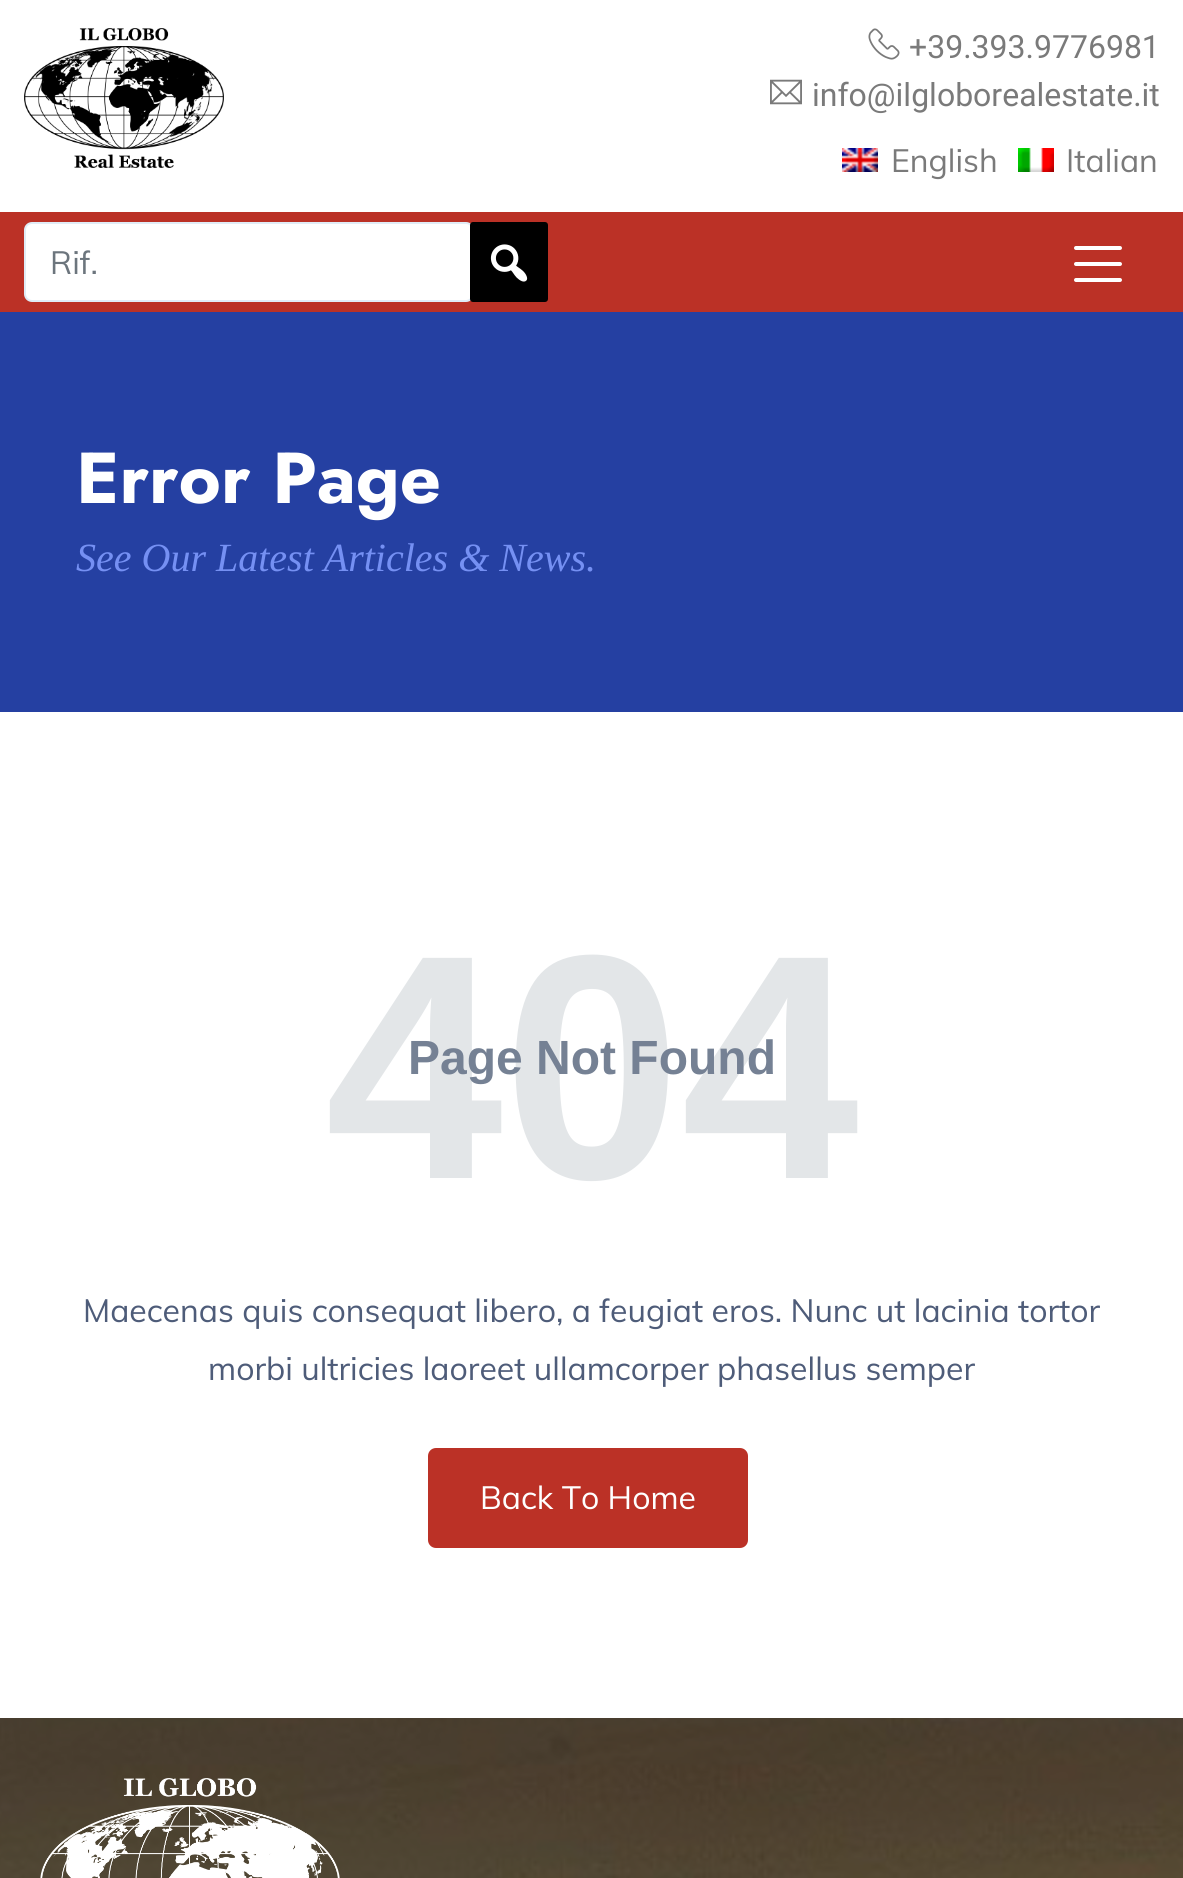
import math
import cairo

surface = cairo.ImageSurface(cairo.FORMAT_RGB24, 1183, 1878)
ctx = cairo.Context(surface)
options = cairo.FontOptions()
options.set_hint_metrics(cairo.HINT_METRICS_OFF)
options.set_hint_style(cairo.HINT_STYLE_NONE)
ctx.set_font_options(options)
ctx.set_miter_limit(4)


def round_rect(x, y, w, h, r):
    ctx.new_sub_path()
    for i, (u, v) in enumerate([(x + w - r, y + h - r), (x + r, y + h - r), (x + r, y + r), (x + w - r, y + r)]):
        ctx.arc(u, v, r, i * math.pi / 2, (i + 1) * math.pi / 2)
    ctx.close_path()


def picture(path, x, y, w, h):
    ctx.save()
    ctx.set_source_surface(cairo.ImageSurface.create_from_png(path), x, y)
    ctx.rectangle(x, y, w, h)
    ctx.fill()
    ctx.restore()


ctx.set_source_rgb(1, 1, 1)
ctx.paint()
picture("img1.png", 24, 28, 200, 140)
picture("img2.png", 868, 28, 32, 32)
ctx.select_font_face("Roboto")
ctx.set_font_size(32)
ctx.set_source_rgb(0.478, 0.478, 0.478)
ctx.move_to(909, 58)
ctx.show_text("+39.393.9776981")
picture("img3.png", 770, 79, 32, 26)
ctx.move_to(812, 106)
ctx.show_text("info@ilgloborealestate.it")
picture("img4.png", 842, 148, 36, 24)
ctx.select_font_face("Muli")
ctx.move_to(891, 172)
ctx.show_text("English")
picture("img5.png", 1018, 148, 36, 24)
ctx.move_to(1066, 172)
ctx.show_text("Italian")
ctx.set_source_rgb(0.733, 0.192, 0.149)
ctx.rectangle(0, 212, 1183, 100)
ctx.fill()
ctx.set_source_rgb(1, 1, 1)
round_rect(25, 223, 448, 78, 7)
ctx.fill_preserve()
ctx.set_source_rgb(0.878, 0.925, 0.961)
ctx.stroke()
ctx.set_source_rgb(0, 0, 0)
round_rect(471, 223, 76, 78, 2)
ctx.fill_preserve()
ctx.stroke()
ctx.set_source_rgb(0.424, 0.459, 0.49)
ctx.move_to(50, 274)
ctx.show_text("Rif.")
picture("img6.png", 490, 244, 38, 38)
ctx.set_source_rgb(1, 1, 1)
round_rect(1074, 278, 48, 4, 2)
ctx.fill()
round_rect(1074, 262, 48, 4, 2)
ctx.fill()
round_rect(1074, 246, 48, 4, 2)
ctx.fill()
ctx.set_source_rgb(0.145, 0.251, 0.635)
ctx.rectangle(0, 312, 1183, 400)
ctx.fill()
ctx.select_font_face("Jost", cairo.FONT_SLANT_NORMAL, cairo.FONT_WEIGHT_BOLD)
ctx.set_font_size(72)
ctx.set_source_rgb(1, 1, 1)
ctx.move_to(76, 503)
ctx.show_text("Error Page")
ctx.select_font_face("Liberation Serif", cairo.FONT_SLANT_ITALIC)
ctx.set_font_size(40)
ctx.set_source_rgb(0.459, 0.565, 0.953)
ctx.move_to(76, 571)
ctx.show_text("See Our Latest Articles & News.")
ctx.select_font_face("Liberation Sans", cairo.FONT_SLANT_NORMAL, cairo.FONT_WEIGHT_BOLD)
ctx.set_font_size(320)
ctx.set_source_rgb(0.89, 0.902, 0.91)
ctx.move_to(325, 1178)
ctx.show_text("404")
ctx.set_font_size(48)
ctx.set_source_rgb(0.459, 0.506, 0.58)
ctx.move_to(408, 1074)
ctx.show_text("Page Not Found")
ctx.select_font_face("Muli")
ctx.set_font_size(32)
ctx.set_source_rgb(0.306, 0.361, 0.475)
ctx.move_to(83, 1322)
ctx.show_text("Maecenas quis consequat libero, a feugiat eros. Nunc ut lacinia tortor")
ctx.move_to(208, 1380)
ctx.show_text("morbi ultricies laoreet ullamcorper phasellus semper")
ctx.set_source_rgb(0.733, 0.192, 0.149)
round_rect(429, 1449, 318, 98, 7)
ctx.fill_preserve()
ctx.stroke()
ctx.set_source_rgb(1, 1, 1)
ctx.move_to(480, 1509)
ctx.show_text("Back To Home")
picture("img7.png", 0, 1718, 1183, 160)
picture("img8.png", 40, 1778, 300, 100)
surface.write_to_png("page.png")
